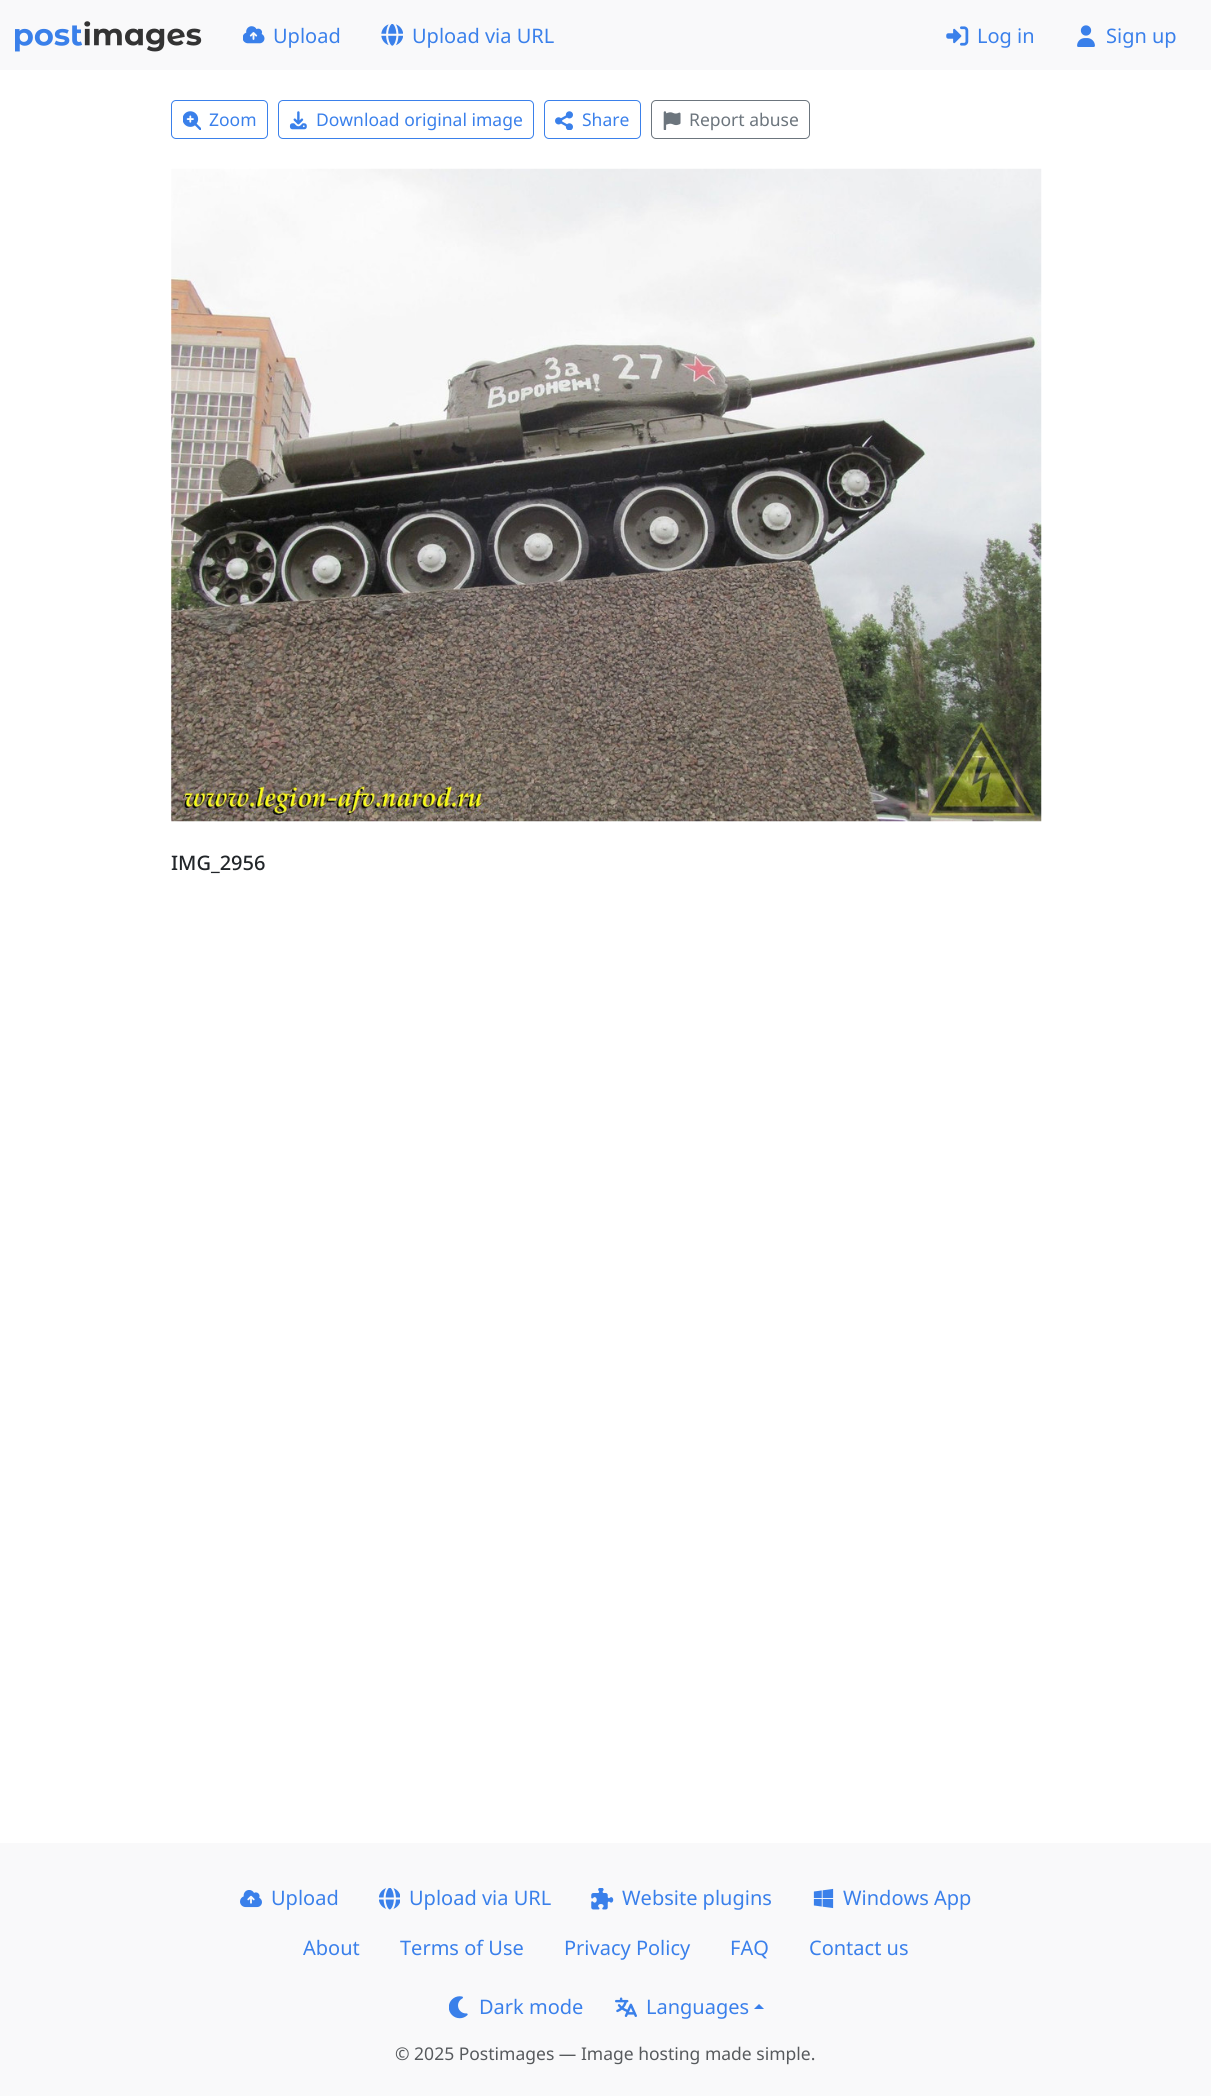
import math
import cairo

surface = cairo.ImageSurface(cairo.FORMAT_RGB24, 1211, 2096)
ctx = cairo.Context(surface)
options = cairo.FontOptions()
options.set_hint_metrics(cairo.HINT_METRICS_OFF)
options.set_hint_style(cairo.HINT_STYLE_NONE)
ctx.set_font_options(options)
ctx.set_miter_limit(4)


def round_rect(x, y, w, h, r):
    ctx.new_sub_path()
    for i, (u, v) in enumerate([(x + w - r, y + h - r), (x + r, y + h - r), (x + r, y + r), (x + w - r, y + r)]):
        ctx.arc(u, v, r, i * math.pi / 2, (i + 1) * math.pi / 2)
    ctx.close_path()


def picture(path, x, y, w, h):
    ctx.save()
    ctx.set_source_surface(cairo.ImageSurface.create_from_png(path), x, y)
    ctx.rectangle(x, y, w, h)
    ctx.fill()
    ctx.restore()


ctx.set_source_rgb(1, 1, 1)
ctx.paint()
ctx.set_source_rgb(0.973, 0.976, 0.98)
ctx.rectangle(0, 0, 1211, 70)
ctx.fill()
picture("img1.png", 15, 21, 187, 31)
picture("img2.png", 243, 26, 22, 18)
ctx.select_font_face("Noto Sans")
ctx.set_font_size(20)
ctx.set_source_rgb(0.227, 0.502, 0.918)
ctx.move_to(273, 43)
ctx.show_text("Upload")
picture("img3.png", 381, 24, 22, 22)
ctx.move_to(412, 43)
ctx.show_text("Upload via URL")
picture("img4.png", 946, 26, 23, 20)
ctx.move_to(977, 43)
ctx.show_text("Log in")
picture("img5.png", 1077, 25, 18, 22)
ctx.move_to(1106, 43)
ctx.show_text("Sign up")
round_rect(171.5, 100.5, 96, 38, 4.5)
ctx.set_line_width(1)
ctx.stroke()
picture("img6.png", 183, 111, 18, 19)
ctx.set_font_size(17.5)
ctx.move_to(209, 126)
ctx.show_text("Zoom")
round_rect(278.5, 100.5, 255, 38, 4.5)
ctx.stroke()
picture("img7.png", 289, 111, 18, 19)
ctx.move_to(316, 126)
ctx.show_text("Download original image")
round_rect(544.5, 100.5, 96, 38, 4.5)
ctx.stroke()
picture("img8.png", 555, 111, 18, 19)
ctx.move_to(582, 126)
ctx.show_text("Share")
round_rect(651.5, 100.5, 158, 38, 4.5)
ctx.set_source_rgb(0.424, 0.459, 0.49)
ctx.stroke()
picture("img9.png", 663, 111, 18, 19)
ctx.move_to(689, 126)
ctx.show_text("Report abuse")
picture("img10.png", 171, 168, 871, 654)
ctx.select_font_face("Noto Sans Medium")
ctx.set_font_size(20)
ctx.set_source_rgb(0.129, 0.145, 0.161)
ctx.move_to(171, 870)
ctx.show_text("IMG_2956")
ctx.set_source_rgb(0.973, 0.976, 0.98)
ctx.rectangle(0, 1843, 1211, 253)
ctx.fill()
picture("img11.png", 240, 1890, 22, 18)
ctx.select_font_face("Noto Sans")
ctx.set_source_rgb(0.227, 0.502, 0.918)
ctx.move_to(271, 1905)
ctx.show_text("Upload")
picture("img12.png", 379, 1888, 21, 22)
ctx.move_to(409, 1905)
ctx.show_text("Upload via URL")
picture("img13.png", 591, 1888, 23, 22)
ctx.move_to(622, 1905)
ctx.show_text("Website plugins")
picture("img14.png", 813, 1888, 21, 21)
ctx.move_to(843, 1905)
ctx.show_text("Windows App")
ctx.move_to(303, 1955)
ctx.show_text("About")
ctx.move_to(400, 1955)
ctx.show_text("Terms of Use")
ctx.move_to(564, 1955)
ctx.show_text("Privacy Policy")
ctx.move_to(730, 1955)
ctx.show_text("FAQ")
ctx.move_to(809, 1955)
ctx.show_text("Contact us")
picture("img15.png", 449, 1996, 19, 23)
ctx.move_to(479, 2014)
ctx.show_text("Dark mode")
picture("img16.png", 615, 1997, 22, 20)
ctx.move_to(646, 2014)
ctx.show_text("Languages")
ctx.new_path()
ctx.move_to(764, 2009)
ctx.line_to(754, 2009)
ctx.line_to(759, 2004)
ctx.close_path()
ctx.fill()
ctx.set_font_size(17.5)
ctx.set_source_rgb(0.341, 0.353, 0.365)
ctx.move_to(395, 2060)
ctx.show_text("© 2025 Postimages — Image hosting made simple.")
surface.write_to_png("page.png")
